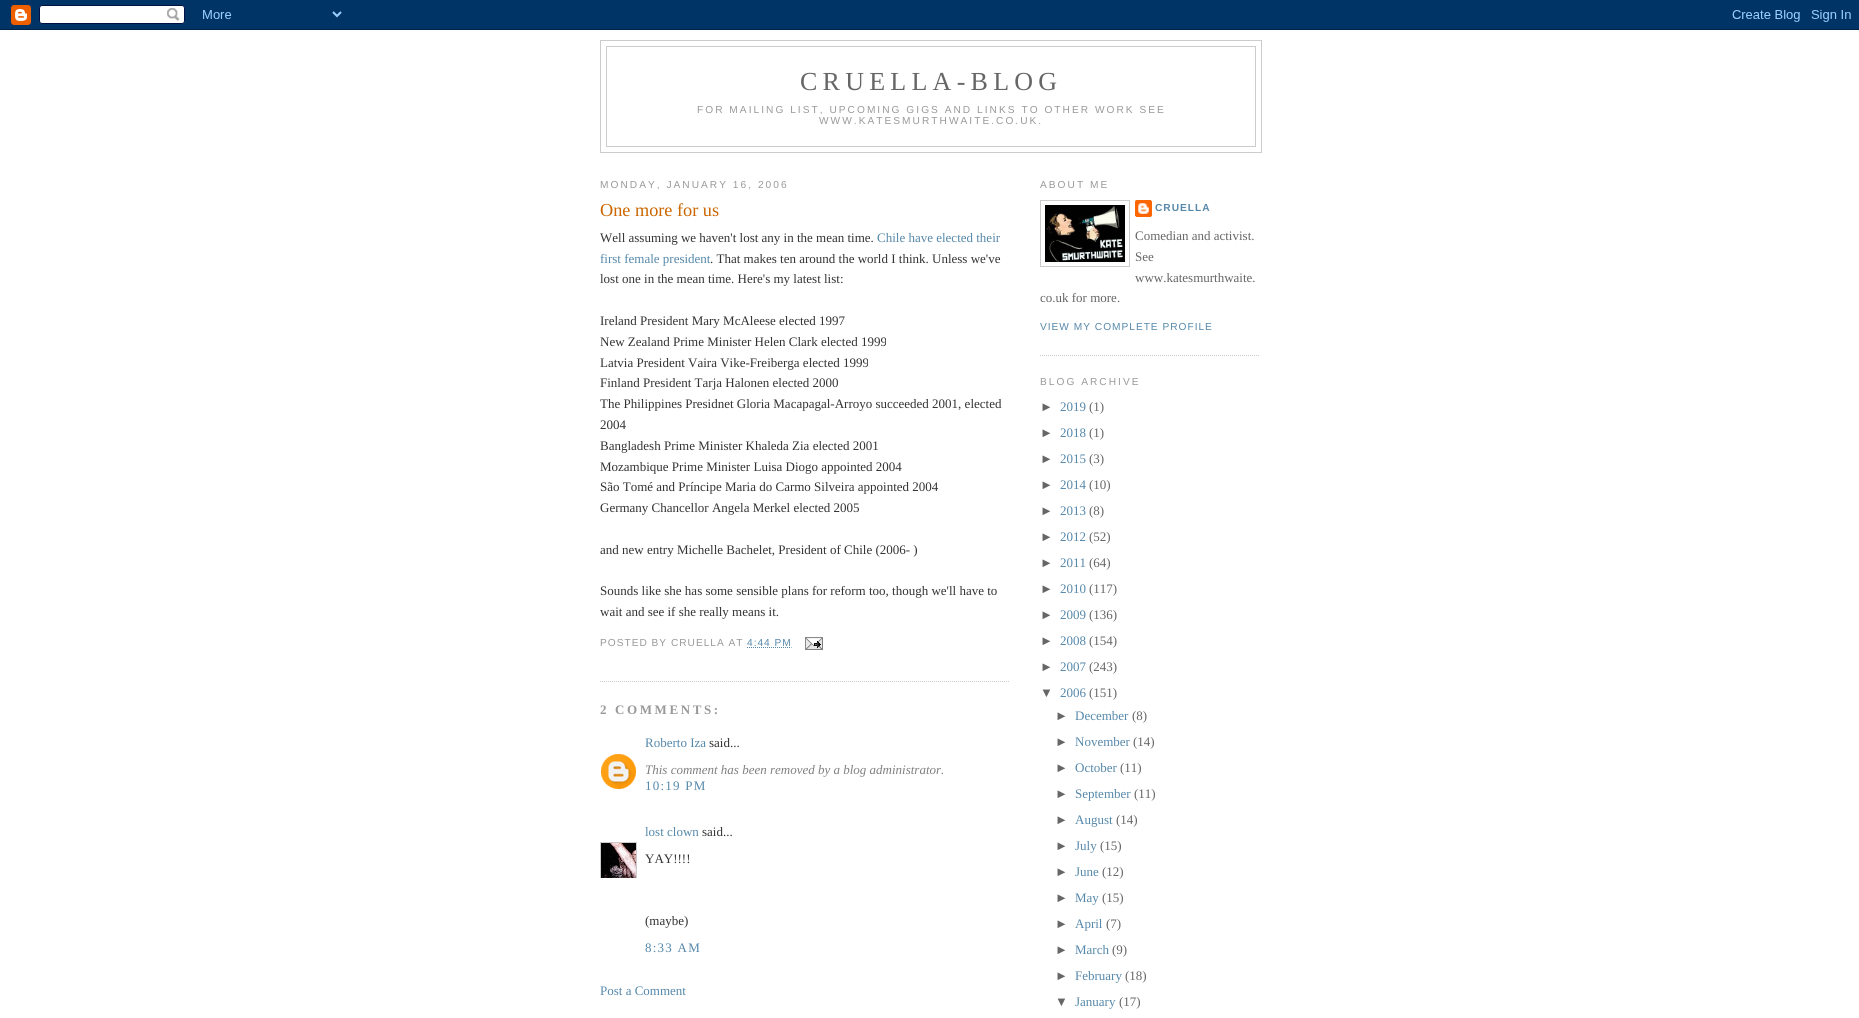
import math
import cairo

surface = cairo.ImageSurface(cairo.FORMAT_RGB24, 1859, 1018)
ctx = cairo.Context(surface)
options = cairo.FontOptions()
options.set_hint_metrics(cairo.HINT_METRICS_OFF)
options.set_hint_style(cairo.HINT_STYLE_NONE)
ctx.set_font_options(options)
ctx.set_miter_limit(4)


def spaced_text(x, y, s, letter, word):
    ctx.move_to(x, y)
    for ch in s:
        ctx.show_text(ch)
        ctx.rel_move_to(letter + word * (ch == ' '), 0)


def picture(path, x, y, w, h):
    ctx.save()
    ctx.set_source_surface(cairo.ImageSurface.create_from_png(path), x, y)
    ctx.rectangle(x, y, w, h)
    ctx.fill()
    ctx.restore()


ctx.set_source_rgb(1, 1, 1)
ctx.paint()
picture("img1.png", 0, 0, 1859, 30)
ctx.rectangle(600.5, 40.5, 661, 112)
ctx.set_source_rgb(0.8, 0.8, 0.8)
ctx.set_line_width(1)
ctx.stroke()
ctx.rectangle(606.5, 46.5, 649, 100)
ctx.stroke()
ctx.select_font_face("Liberation Serif")
ctx.set_font_size(26)
ctx.set_source_rgb(0.4, 0.4, 0.4)
spaced_text(800, 90, "CRUELLA-BLOG", 5.25, 0)
ctx.select_font_face("Liberation Sans")
ctx.set_font_size(10.15)
ctx.set_source_rgb(0.6, 0.6, 0.6)
spaced_text(697, 113, "FOR MAILING LIST, UPCOMING GIGS AND LINKS TO OTHER WORK SEE", 2.03, 0)
spaced_text(819, 124, "WWW.KATESMURTHWAITE.CO.UK.", 2.03, 0)
spaced_text(600, 188, "MONDAY, JANUARY 16, 2006", 2.03, 0)
ctx.new_path()
ctx.move_to(600, 681.5)
ctx.line_to(1010, 681.5)
ctx.set_source_rgb(0.8, 0.8, 0.8)
ctx.set_dash([1, 1])
ctx.stroke()
ctx.select_font_face("Liberation Serif")
ctx.set_font_size(18.25)
ctx.set_source_rgb(0.8, 0.4, 0)
ctx.move_to(600, 216)
ctx.show_text("One more for us")
ctx.set_font_size(13)
ctx.set_source_rgb(0.2, 0.2, 0.2)
ctx.move_to(600, 242)
ctx.show_text("Well assuming we haven't lost any in the mean time.")
ctx.set_source_rgb(0.333, 0.533, 0.667)
ctx.move_to(877, 242)
ctx.show_text("Chile have elected their")
ctx.move_to(600, 263)
ctx.show_text("first female president")
ctx.set_source_rgb(0.2, 0.2, 0.2)
ctx.move_to(710, 263)
ctx.show_text(". That makes ten around the world I think. Unless we've")
ctx.move_to(600, 283)
ctx.show_text("lost one in the mean time. Here's my latest list:")
ctx.move_to(600, 325)
ctx.show_text("Ireland President Mary McAleese elected 1997")
ctx.move_to(600, 346)
ctx.show_text("New Zealand Prime Minister Helen Clark elected 1999")
ctx.move_to(600, 367)
ctx.show_text("Latvia President Vaira Vike-Freiberga elected 1999")
ctx.move_to(600, 387)
ctx.show_text("Finland President Tarja Halonen elected 2000")
ctx.save()
ctx.rectangle(600, 163, 410, 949)
ctx.clip()
ctx.move_to(600, 408)
ctx.show_text("The Philippines Presidnet Gloria Macapagal-Arroyo succeeded 2001, elected")
ctx.restore()
ctx.move_to(600, 429)
ctx.show_text("2004")
ctx.move_to(600, 450)
ctx.show_text("Bangladesh Prime Minister Khaleda Zia elected 2001")
ctx.move_to(600, 471)
ctx.show_text("Mozambique Prime Minister Luisa Diogo appointed 2004")
ctx.move_to(600, 491)
ctx.show_text("São Tomé and Príncipe Maria do Carmo Silveira appointed 2004")
ctx.move_to(600, 512)
ctx.show_text("Germany Chancellor Angela Merkel elected 2005")
ctx.move_to(600, 554)
ctx.show_text("and new entry Michelle Bachelet, President of Chile (2006- )")
ctx.move_to(600, 595)
ctx.show_text("Sounds like she has some sensible plans for reform too, though we'll have to")
ctx.move_to(600, 616)
ctx.show_text("wait and see if she really means it.")
ctx.select_font_face("Liberation Sans")
ctx.set_font_size(10.15)
ctx.set_source_rgb(0.6, 0.6, 0.6)
spaced_text(600, 646, "POSTED BY CRUELLA AT", 1, 0)
ctx.set_source_rgb(0.333, 0.533, 0.667)
spaced_text(747, 646, "4:44 PM", 1, 0)
ctx.new_path()
ctx.move_to(747, 647.5)
ctx.line_to(791.5, 647.5)
ctx.stroke()
picture("img2.png", 805, 637, 18, 13)
ctx.select_font_face("Liberation Serif", cairo.FONT_SLANT_NORMAL, cairo.FONT_WEIGHT_BOLD)
ctx.set_font_size(13)
ctx.set_source_rgb(0.6, 0.6, 0.6)
spaced_text(600, 714, "2 COMMENTS:", 2.6, 0)
ctx.select_font_face("Liberation Serif")
ctx.set_source_rgb(0.333, 0.533, 0.667)
ctx.move_to(645, 747)
ctx.show_text("Roberto Iza")
ctx.set_source_rgb(0.2, 0.2, 0.2)
ctx.move_to(709, 747)
ctx.show_text("said...")
picture("img3.png", 601, 754, 35, 35)
ctx.select_font_face("Liberation Serif", cairo.FONT_SLANT_ITALIC)
ctx.set_source_rgb(0.502, 0.502, 0.502)
ctx.move_to(645, 774)
ctx.show_text("This comment has been removed by a blog administrator.")
ctx.select_font_face("Liberation Serif")
ctx.set_source_rgb(0.333, 0.533, 0.667)
spaced_text(645, 790, "10:19 PM", 1.25, 0)
ctx.move_to(645, 836)
ctx.show_text("lost clown")
ctx.set_source_rgb(0.2, 0.2, 0.2)
ctx.move_to(702, 836)
ctx.show_text("said...")
ctx.save()
ctx.rectangle(600, 842, 37, 36)
ctx.clip()
ctx.rectangle(600.5, 842.5, 36, 36)
ctx.set_source_rgb(0.8, 0.8, 0.8)
ctx.set_dash([])
ctx.stroke()
ctx.restore()
picture("img4.png", 601, 843, 35, 35)
ctx.move_to(645, 863)
ctx.show_text("YAY!!!!")
ctx.move_to(645, 925)
ctx.show_text("(maybe)")
ctx.set_source_rgb(0.333, 0.533, 0.667)
spaced_text(645, 952, "8:33 AM", 1.25, 0)
ctx.move_to(600, 995)
ctx.show_text("Post a Comment")
ctx.new_path()
ctx.move_to(1040, 355.5)
ctx.line_to(1260, 355.5)
ctx.set_source_rgb(0.8, 0.8, 0.8)
ctx.stroke()
ctx.select_font_face("Liberation Sans")
ctx.set_font_size(10.15)
ctx.set_source_rgb(0.6, 0.6, 0.6)
spaced_text(1040, 188, "ABOUT ME", 2.03, 0)
ctx.rectangle(1040.5, 200.5, 89, 66)
ctx.set_source_rgb(0.8, 0.8, 0.8)
ctx.set_dash([])
ctx.stroke()
picture("img5.png", 1045, 205, 80, 57)
picture("img6.png", 1135, 200, 17, 17)
ctx.select_font_face("Liberation Sans", cairo.FONT_SLANT_NORMAL, cairo.FONT_WEIGHT_BOLD)
ctx.set_source_rgb(0.333, 0.533, 0.667)
spaced_text(1155, 211, "CRUELLA", 1, 0)
ctx.select_font_face("Liberation Serif")
ctx.set_font_size(13)
ctx.set_source_rgb(0.4, 0.4, 0.4)
ctx.move_to(1135, 240)
ctx.show_text("Comedian and activist.")
ctx.move_to(1135, 261)
ctx.show_text("See")
ctx.move_to(1135, 282)
ctx.show_text("www.katesmurthwaite.")
ctx.move_to(1040, 302)
ctx.show_text("co.uk for more.")
ctx.select_font_face("Liberation Sans")
ctx.set_font_size(10.15)
ctx.set_source_rgb(0.333, 0.533, 0.667)
spaced_text(1040, 330, "VIEW MY COMPLETE PROFILE", 1, 0)
ctx.set_source_rgb(0.6, 0.6, 0.6)
spaced_text(1040, 385, "BLOG ARCHIVE", 2.03, 0)
ctx.set_font_size(13)
ctx.set_source_rgb(0.4, 0.4, 0.4)
ctx.move_to(1040, 411)
ctx.show_text("►")
ctx.select_font_face("Liberation Serif")
ctx.set_source_rgb(0.333, 0.533, 0.667)
ctx.move_to(1060, 411)
ctx.show_text("2019")
ctx.set_source_rgb(0.4, 0.4, 0.4)
ctx.move_to(1089, 411)
ctx.show_text("(1)")
ctx.select_font_face("Liberation Sans")
ctx.move_to(1040, 437)
ctx.show_text("►")
ctx.select_font_face("Liberation Serif")
ctx.set_source_rgb(0.333, 0.533, 0.667)
ctx.move_to(1060, 437)
ctx.show_text("2018")
ctx.set_source_rgb(0.4, 0.4, 0.4)
ctx.move_to(1089, 437)
ctx.show_text("(1)")
ctx.select_font_face("Liberation Sans")
ctx.move_to(1040, 463)
ctx.show_text("►")
ctx.select_font_face("Liberation Serif")
ctx.set_source_rgb(0.333, 0.533, 0.667)
ctx.move_to(1060, 463)
ctx.show_text("2015")
ctx.set_source_rgb(0.4, 0.4, 0.4)
ctx.move_to(1089, 463)
ctx.show_text("(3)")
ctx.select_font_face("Liberation Sans")
ctx.move_to(1040, 489)
ctx.show_text("►")
ctx.select_font_face("Liberation Serif")
ctx.set_source_rgb(0.333, 0.533, 0.667)
ctx.move_to(1060, 489)
ctx.show_text("2014")
ctx.set_source_rgb(0.4, 0.4, 0.4)
ctx.move_to(1089, 489)
ctx.show_text("(10)")
ctx.select_font_face("Liberation Sans")
ctx.move_to(1040, 515)
ctx.show_text("►")
ctx.select_font_face("Liberation Serif")
ctx.set_source_rgb(0.333, 0.533, 0.667)
ctx.move_to(1060, 515)
ctx.show_text("2013")
ctx.set_source_rgb(0.4, 0.4, 0.4)
ctx.move_to(1089, 515)
ctx.show_text("(8)")
ctx.select_font_face("Liberation Sans")
ctx.move_to(1040, 541)
ctx.show_text("►")
ctx.select_font_face("Liberation Serif")
ctx.set_source_rgb(0.333, 0.533, 0.667)
ctx.move_to(1060, 541)
ctx.show_text("2012")
ctx.set_source_rgb(0.4, 0.4, 0.4)
ctx.move_to(1089, 541)
ctx.show_text("(52)")
ctx.select_font_face("Liberation Sans")
ctx.move_to(1040, 567)
ctx.show_text("►")
ctx.select_font_face("Liberation Serif")
ctx.set_source_rgb(0.333, 0.533, 0.667)
ctx.move_to(1060, 567)
ctx.show_text("2011")
ctx.set_source_rgb(0.4, 0.4, 0.4)
ctx.move_to(1089, 567)
ctx.show_text("(64)")
ctx.select_font_face("Liberation Sans")
ctx.move_to(1040, 593)
ctx.show_text("►")
ctx.select_font_face("Liberation Serif")
ctx.set_source_rgb(0.333, 0.533, 0.667)
ctx.move_to(1060, 593)
ctx.show_text("2010")
ctx.set_source_rgb(0.4, 0.4, 0.4)
ctx.move_to(1089, 593)
ctx.show_text("(117)")
ctx.select_font_face("Liberation Sans")
ctx.move_to(1040, 619)
ctx.show_text("►")
ctx.select_font_face("Liberation Serif")
ctx.set_source_rgb(0.333, 0.533, 0.667)
ctx.move_to(1060, 619)
ctx.show_text("2009")
ctx.set_source_rgb(0.4, 0.4, 0.4)
ctx.move_to(1089, 619)
ctx.show_text("(136)")
ctx.select_font_face("Liberation Sans")
ctx.move_to(1040, 645)
ctx.show_text("►")
ctx.select_font_face("Liberation Serif")
ctx.set_source_rgb(0.333, 0.533, 0.667)
ctx.move_to(1060, 645)
ctx.show_text("2008")
ctx.set_source_rgb(0.4, 0.4, 0.4)
ctx.move_to(1089, 645)
ctx.show_text("(154)")
ctx.select_font_face("Liberation Sans")
ctx.move_to(1040, 671)
ctx.show_text("►")
ctx.select_font_face("Liberation Serif")
ctx.set_source_rgb(0.333, 0.533, 0.667)
ctx.move_to(1060, 671)
ctx.show_text("2007")
ctx.set_source_rgb(0.4, 0.4, 0.4)
ctx.move_to(1089, 671)
ctx.show_text("(243)")
ctx.select_font_face("Liberation Sans")
ctx.move_to(1040, 697)
ctx.show_text("▼")
ctx.select_font_face("Liberation Serif")
ctx.set_source_rgb(0.333, 0.533, 0.667)
ctx.move_to(1060, 697)
ctx.show_text("2006")
ctx.set_source_rgb(0.4, 0.4, 0.4)
ctx.move_to(1089, 697)
ctx.show_text("(151)")
ctx.select_font_face("Liberation Sans")
ctx.move_to(1055, 720)
ctx.show_text("►")
ctx.select_font_face("Liberation Serif")
ctx.set_source_rgb(0.333, 0.533, 0.667)
ctx.move_to(1075, 720)
ctx.show_text("December")
ctx.set_source_rgb(0.4, 0.4, 0.4)
ctx.move_to(1132, 720)
ctx.show_text("(8)")
ctx.select_font_face("Liberation Sans")
ctx.move_to(1055, 746)
ctx.show_text("►")
ctx.select_font_face("Liberation Serif")
ctx.set_source_rgb(0.333, 0.533, 0.667)
ctx.move_to(1075, 746)
ctx.show_text("November")
ctx.set_source_rgb(0.4, 0.4, 0.4)
ctx.move_to(1133, 746)
ctx.show_text("(14)")
ctx.select_font_face("Liberation Sans")
ctx.move_to(1055, 772)
ctx.show_text("►")
ctx.select_font_face("Liberation Serif")
ctx.set_source_rgb(0.333, 0.533, 0.667)
ctx.move_to(1075, 772)
ctx.show_text("October")
ctx.set_source_rgb(0.4, 0.4, 0.4)
ctx.move_to(1120, 772)
ctx.show_text("(11)")
ctx.select_font_face("Liberation Sans")
ctx.move_to(1055, 798)
ctx.show_text("►")
ctx.select_font_face("Liberation Serif")
ctx.set_source_rgb(0.333, 0.533, 0.667)
ctx.move_to(1075, 798)
ctx.show_text("September")
ctx.set_source_rgb(0.4, 0.4, 0.4)
ctx.move_to(1134, 798)
ctx.show_text("(11)")
ctx.select_font_face("Liberation Sans")
ctx.move_to(1055, 824)
ctx.show_text("►")
ctx.select_font_face("Liberation Serif")
ctx.set_source_rgb(0.333, 0.533, 0.667)
ctx.move_to(1075, 824)
ctx.show_text("August")
ctx.set_source_rgb(0.4, 0.4, 0.4)
ctx.move_to(1116, 824)
ctx.show_text("(14)")
ctx.select_font_face("Liberation Sans")
ctx.move_to(1055, 850)
ctx.show_text("►")
ctx.select_font_face("Liberation Serif")
ctx.set_source_rgb(0.333, 0.533, 0.667)
ctx.move_to(1075, 850)
ctx.show_text("July")
ctx.set_source_rgb(0.4, 0.4, 0.4)
ctx.move_to(1100, 850)
ctx.show_text("(15)")
ctx.select_font_face("Liberation Sans")
ctx.move_to(1055, 876)
ctx.show_text("►")
ctx.select_font_face("Liberation Serif")
ctx.set_source_rgb(0.333, 0.533, 0.667)
ctx.move_to(1075, 876)
ctx.show_text("June")
ctx.set_source_rgb(0.4, 0.4, 0.4)
ctx.move_to(1102, 876)
ctx.show_text("(12)")
ctx.select_font_face("Liberation Sans")
ctx.move_to(1055, 902)
ctx.show_text("►")
ctx.select_font_face("Liberation Serif")
ctx.set_source_rgb(0.333, 0.533, 0.667)
ctx.move_to(1075, 902)
ctx.show_text("May")
ctx.set_source_rgb(0.4, 0.4, 0.4)
ctx.move_to(1102, 902)
ctx.show_text("(15)")
ctx.select_font_face("Liberation Sans")
ctx.move_to(1055, 928)
ctx.show_text("►")
ctx.select_font_face("Liberation Serif")
ctx.set_source_rgb(0.333, 0.533, 0.667)
ctx.move_to(1075, 928)
ctx.show_text("April")
ctx.set_source_rgb(0.4, 0.4, 0.4)
ctx.move_to(1106, 928)
ctx.show_text("(7)")
ctx.select_font_face("Liberation Sans")
ctx.move_to(1055, 954)
ctx.show_text("►")
ctx.select_font_face("Liberation Serif")
ctx.set_source_rgb(0.333, 0.533, 0.667)
ctx.move_to(1075, 954)
ctx.show_text("March")
ctx.set_source_rgb(0.4, 0.4, 0.4)
ctx.move_to(1112, 954)
ctx.show_text("(9)")
ctx.select_font_face("Liberation Sans")
ctx.move_to(1055, 980)
ctx.show_text("►")
ctx.select_font_face("Liberation Serif")
ctx.set_source_rgb(0.333, 0.533, 0.667)
ctx.move_to(1075, 980)
ctx.show_text("February")
ctx.set_source_rgb(0.4, 0.4, 0.4)
ctx.move_to(1125, 980)
ctx.show_text("(18)")
ctx.select_font_face("Liberation Sans")
ctx.move_to(1055, 1006)
ctx.show_text("▼")
ctx.select_font_face("Liberation Serif")
ctx.set_source_rgb(0.333, 0.533, 0.667)
ctx.move_to(1075, 1006)
ctx.show_text("January")
ctx.set_source_rgb(0.4, 0.4, 0.4)
ctx.move_to(1119, 1006)
ctx.show_text("(17)")
surface.write_to_png("page.png")
